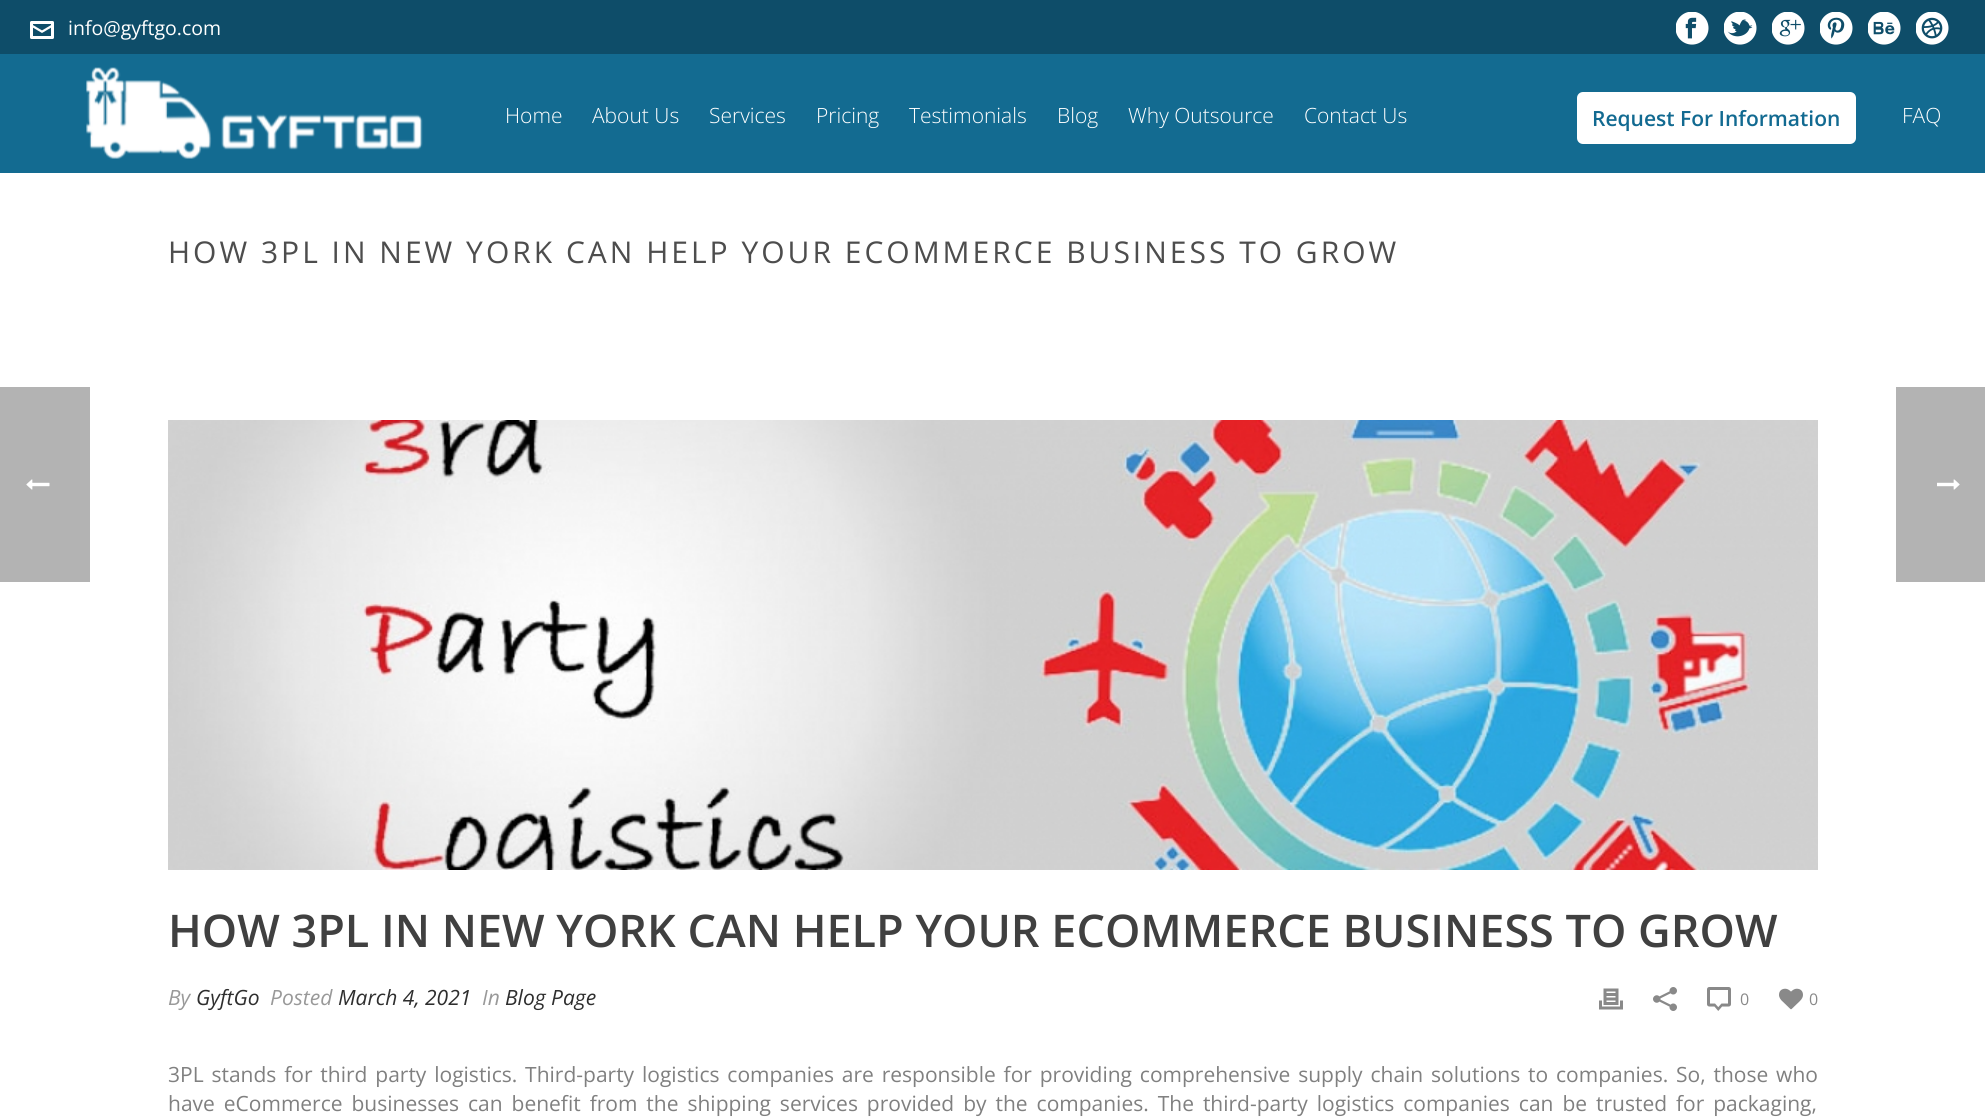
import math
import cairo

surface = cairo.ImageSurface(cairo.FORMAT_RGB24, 1985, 1119)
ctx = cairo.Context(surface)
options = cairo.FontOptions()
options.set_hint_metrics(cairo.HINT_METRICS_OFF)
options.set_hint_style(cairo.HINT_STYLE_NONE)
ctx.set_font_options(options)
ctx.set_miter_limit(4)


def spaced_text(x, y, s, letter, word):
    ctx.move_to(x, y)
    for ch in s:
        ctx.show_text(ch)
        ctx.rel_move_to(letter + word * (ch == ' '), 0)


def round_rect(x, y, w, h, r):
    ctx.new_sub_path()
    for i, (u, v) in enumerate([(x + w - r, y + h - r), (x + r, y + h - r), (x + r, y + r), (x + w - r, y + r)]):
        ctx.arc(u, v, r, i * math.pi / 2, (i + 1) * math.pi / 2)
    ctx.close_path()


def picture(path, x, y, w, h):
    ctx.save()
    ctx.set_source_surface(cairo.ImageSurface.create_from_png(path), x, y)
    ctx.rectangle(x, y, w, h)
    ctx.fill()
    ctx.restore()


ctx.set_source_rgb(1, 1, 1)
ctx.paint()
ctx.set_source_rgb(0.702, 0.702, 0.702)
ctx.rectangle(0, 387, 90, 195)
ctx.fill()
picture("img1.png", 26, 479, 24, 11)
ctx.set_source_rgb(0.055, 0.302, 0.412)
ctx.rectangle(0, 0, 1985, 54)
ctx.fill()
picture("img2.png", 30, 21, 24, 18)
ctx.select_font_face("Open Sans")
ctx.set_font_size(19.5)
ctx.set_source_rgb(1, 1, 1)
ctx.move_to(68, 35)
ctx.show_text("info@gyftgo.com")
picture("img3.png", 1676, 12, 33, 33)
picture("img4.png", 1724, 12, 33, 33)
picture("img5.png", 1772, 12, 33, 33)
picture("img6.png", 1820, 12, 33, 33)
picture("img7.png", 1868, 12, 33, 33)
picture("img8.png", 1916, 12, 33, 33)
ctx.set_source_rgb(0.075, 0.42, 0.569)
ctx.rectangle(0, 54, 1985, 119)
ctx.fill()
picture("img9.png", 86, 67, 337, 92)
ctx.select_font_face("Open Sans Light")
ctx.set_font_size(21)
ctx.set_source_rgb(1, 1, 1)
ctx.move_to(505, 123)
ctx.show_text("Home")
ctx.move_to(592, 123)
ctx.show_text("About Us")
ctx.move_to(709, 123)
ctx.show_text("Services")
ctx.move_to(816, 123)
ctx.show_text("Pricing")
ctx.move_to(909, 123)
ctx.show_text("Testimonials")
ctx.move_to(1057, 123)
ctx.show_text("Blog")
ctx.move_to(1128, 123)
ctx.show_text("Why Outsource")
ctx.move_to(1304, 123)
ctx.show_text("Contact Us")
round_rect(1577, 92, 279, 52, 6)
ctx.fill()
ctx.select_font_face("Open Sans SemiBold")
ctx.set_source_rgb(0.071, 0.416, 0.569)
ctx.move_to(1592, 126)
ctx.show_text("Request For Information")
ctx.select_font_face("Open Sans Light")
ctx.set_source_rgb(1, 1, 1)
ctx.move_to(1902, 123)
ctx.show_text("FAQ")
ctx.select_font_face("Open Sans")
ctx.set_font_size(30)
ctx.set_source_rgb(0.302, 0.302, 0.302)
spaced_text(168, 263, "HOW 3PL IN NEW YORK CAN HELP YOUR ECOMMERCE BUSINESS TO GROW", 3, 0)
picture("img10.png", 168, 420, 1650, 450)
ctx.select_font_face("Open Sans SemiBold")
ctx.set_font_size(45)
ctx.set_source_rgb(0.251, 0.251, 0.251)
ctx.move_to(168, 947)
ctx.show_text("HOW 3PL IN NEW YORK CAN HELP YOUR ECOMMERCE BUSINESS TO GROW")
ctx.select_font_face("Open Sans", cairo.FONT_SLANT_ITALIC)
ctx.set_font_size(21)
ctx.set_source_rgb(0.6, 0.6, 0.6)
ctx.move_to(168, 1005)
ctx.show_text("By")
ctx.set_source_rgb(0.18, 0.18, 0.18)
ctx.move_to(196, 1005)
ctx.show_text("GyftGo")
ctx.set_source_rgb(0.6, 0.6, 0.6)
ctx.move_to(270, 1005)
ctx.show_text("Posted")
ctx.set_source_rgb(0.18, 0.18, 0.18)
ctx.move_to(338, 1005)
ctx.show_text("March 4, 2021")
ctx.set_source_rgb(0.6, 0.6, 0.6)
ctx.move_to(482, 1005)
ctx.show_text("In")
ctx.set_source_rgb(0.18, 0.18, 0.18)
ctx.move_to(505, 1005)
ctx.show_text("Blog Page")
picture("img11.png", 1599, 988, 24, 22)
picture("img12.png", 1653, 987, 24, 24)
picture("img13.png", 1707, 987, 24, 24)
ctx.select_font_face("Open Sans")
ctx.set_font_size(16)
ctx.set_source_rgb(0.537, 0.537, 0.537)
ctx.move_to(1740, 1005)
ctx.show_text("0")
picture("img14.png", 1779, 988, 24, 22)
ctx.move_to(1809, 1005)
ctx.show_text("0")
ctx.set_font_size(21)
ctx.set_source_rgb(0.502, 0.502, 0.502)
spaced_text(168, 1082, "3PL stands for third party logistics. Third-party logistics companies are responsible for providing comprehensive supply chain solutions to companies. So, those who", 0, 2.4)
spaced_text(168, 1111, "have eCommerce businesses can benefit from the shipping services provided by the companies. The third-party logistics companies can be trusted for packaging,", 0, 3.5)
ctx.set_source_rgb(0.702, 0.702, 0.702)
ctx.rectangle(1896, 387, 89, 195)
ctx.fill()
picture("img15.png", 1937, 479, 23, 11)
surface.write_to_png("page.png")
